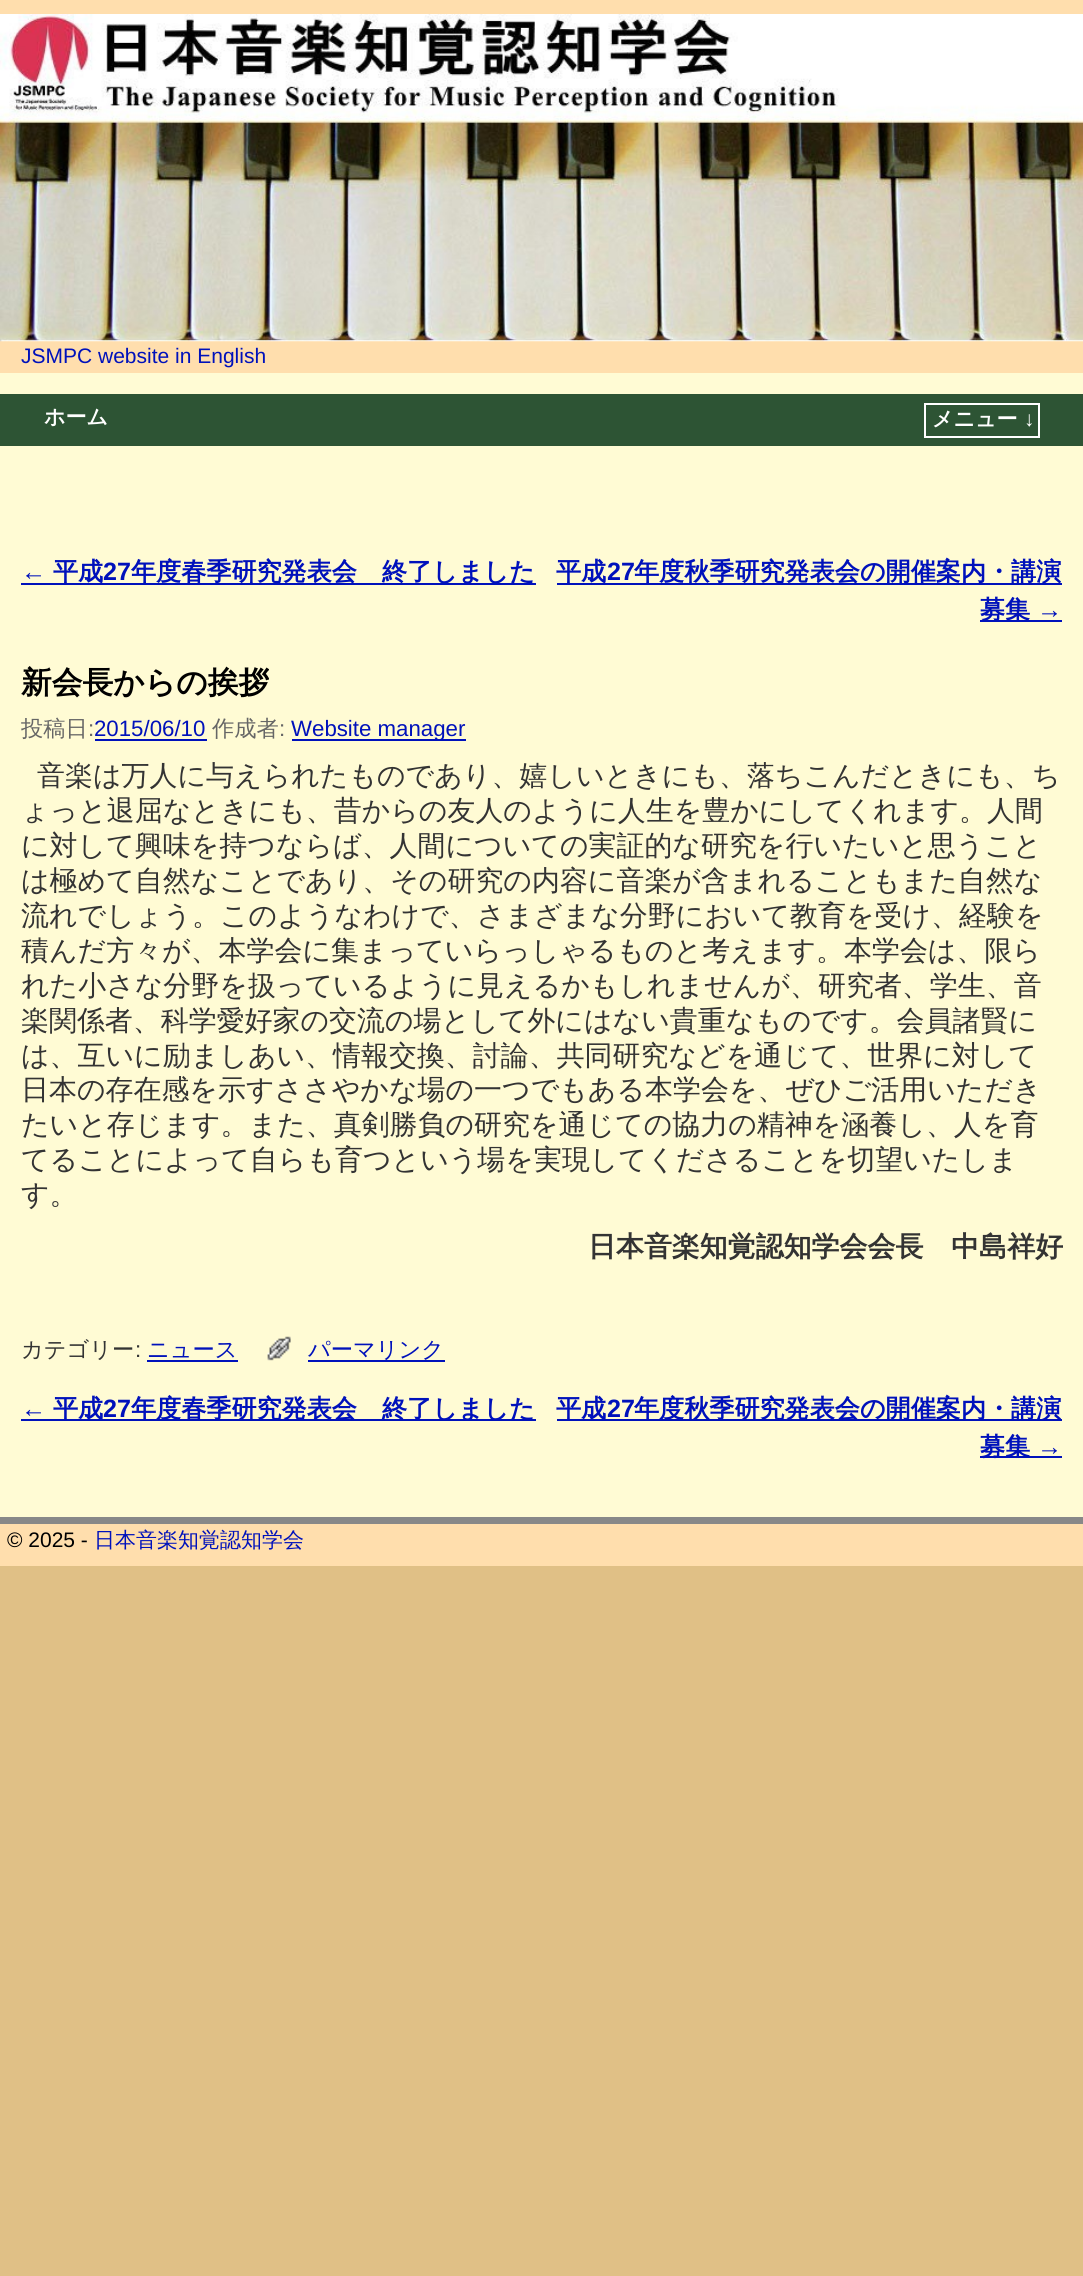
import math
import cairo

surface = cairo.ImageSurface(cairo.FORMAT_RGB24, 1083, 2276)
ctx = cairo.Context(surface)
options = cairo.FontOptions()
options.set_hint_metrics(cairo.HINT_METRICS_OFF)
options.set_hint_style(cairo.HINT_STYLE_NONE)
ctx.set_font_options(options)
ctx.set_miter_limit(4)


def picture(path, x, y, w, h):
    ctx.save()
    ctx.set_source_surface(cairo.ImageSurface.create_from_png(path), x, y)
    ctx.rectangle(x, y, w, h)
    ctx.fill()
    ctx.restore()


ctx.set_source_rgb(0.878, 0.753, 0.525)
ctx.paint()
ctx.set_source_rgb(1, 0.984, 0.831)
ctx.rectangle(0, 373, 1083, 1144)
ctx.fill()
ctx.set_source_rgb(1, 0.871, 0.678)
ctx.rectangle(0, 0, 1083, 373)
ctx.fill()
picture("img1.png", 0, 14, 1083, 328)
ctx.select_font_face("Liberation Sans")
ctx.set_font_size(21)
ctx.set_source_rgb(0, 0.067, 0.733)
ctx.move_to(21, 363)
ctx.show_text("JSMPC website in English")
ctx.set_source_rgb(0.176, 0.329, 0.204)
ctx.rectangle(0, 394, 1083, 52)
ctx.fill()
ctx.select_font_face("WenQuanYi Zen Hei", cairo.FONT_SLANT_NORMAL, cairo.FONT_WEIGHT_BOLD)
ctx.set_source_rgb(1, 1, 1)
ctx.move_to(44, 424)
ctx.show_text("ホーム")
ctx.rectangle(925, 404, 114, 33)
ctx.stroke()
ctx.move_to(932, 426)
ctx.show_text("メニュー")
ctx.select_font_face("Liberation Sans", cairo.FONT_SLANT_NORMAL, cairo.FONT_WEIGHT_BOLD)
ctx.move_to(1024, 426)
ctx.show_text("↓")
ctx.select_font_face("Liberation Sans")
ctx.set_font_size(25.1)
ctx.set_source_rgb(0, 0.067, 0.733)
ctx.move_to(21, 580)
ctx.show_text("←")
ctx.rectangle(21, 583, 515, 2)
ctx.fill()
ctx.select_font_face("WenQuanYi Zen Hei", cairo.FONT_SLANT_NORMAL, cairo.FONT_WEIGHT_BOLD)
ctx.move_to(53, 580)
ctx.show_text("平成")
ctx.select_font_face("Liberation Sans", cairo.FONT_SLANT_NORMAL, cairo.FONT_WEIGHT_BOLD)
ctx.move_to(103, 580)
ctx.show_text("27")
ctx.select_font_face("WenQuanYi Zen Hei", cairo.FONT_SLANT_NORMAL, cairo.FONT_WEIGHT_BOLD)
ctx.move_to(131, 580)
ctx.show_text("年度春季研究発表会　終了しました")
ctx.rectangle(557, 583, 505, 2)
ctx.fill()
ctx.move_to(556, 580)
ctx.show_text("平成")
ctx.select_font_face("Liberation Sans", cairo.FONT_SLANT_NORMAL, cairo.FONT_WEIGHT_BOLD)
ctx.move_to(607, 580)
ctx.show_text("27")
ctx.select_font_face("WenQuanYi Zen Hei", cairo.FONT_SLANT_NORMAL, cairo.FONT_WEIGHT_BOLD)
ctx.move_to(634, 580)
ctx.show_text("年度秋季研究発表会の開催案内・講演")
ctx.rectangle(980, 620, 82, 2)
ctx.fill()
ctx.move_to(980, 618)
ctx.show_text("募集")
ctx.select_font_face("Liberation Sans")
ctx.move_to(1037, 618)
ctx.show_text("→")
ctx.select_font_face("WenQuanYi Zen Hei", cairo.FONT_SLANT_NORMAL, cairo.FONT_WEIGHT_BOLD)
ctx.set_font_size(30.75)
ctx.set_source_rgb(0, 0, 0)
ctx.move_to(21, 693)
ctx.show_text("新会長からの挨拶")
ctx.select_font_face("WenQuanYi Zen Hei Medium")
ctx.set_font_size(22.25)
ctx.set_source_rgb(0.4, 0.4, 0.4)
ctx.move_to(21, 736)
ctx.show_text("投稿日")
ctx.select_font_face("Liberation Sans")
ctx.move_to(88, 736)
ctx.show_text(":")
ctx.set_source_rgb(0, 0.067, 0.733)
ctx.move_to(94, 736)
ctx.show_text("2015/06/10")
ctx.rectangle(95, 739, 112, 2)
ctx.fill()
ctx.select_font_face("WenQuanYi Zen Hei Medium")
ctx.set_source_rgb(0.4, 0.4, 0.4)
ctx.move_to(212, 736)
ctx.show_text("作成者")
ctx.select_font_face("Liberation Sans")
ctx.move_to(279, 736)
ctx.show_text(":")
ctx.set_source_rgb(0, 0.067, 0.733)
ctx.rectangle(292, 739, 174, 2)
ctx.fill()
ctx.move_to(291, 736)
ctx.show_text("Website manager")
ctx.select_font_face("WenQuanYi Zen Hei Medium")
ctx.set_font_size(27.95)
ctx.set_source_rgb(0.2, 0.2, 0.2)
ctx.move_to(37, 785)
ctx.show_text("音楽は万人に与えられたものであり、嬉しいときにも、落ちこんだときにも、ち")
ctx.move_to(21, 820)
ctx.show_text("ょっと退屈なときにも、昔からの友人のように人生を豊かにしてくれます。人間")
ctx.move_to(21, 855)
ctx.show_text("に対して興味を持つならば、人間についての実証的な研究を行いたいと思うこと")
ctx.move_to(21, 890)
ctx.show_text("は極めて自然なことであり、その研究の内容に音楽が含まれることもまた自然な")
ctx.move_to(21, 925)
ctx.show_text("流れでしょう。このようなわけで、さまざまな分野において教育を受け、経験を")
ctx.move_to(21, 960)
ctx.show_text("積んだ方々が、本学会に集まっていらっしゃるものと考えます。本学会は、限ら")
ctx.move_to(21, 995)
ctx.show_text("れた小さな分野を扱っているように見えるかもしれませんが、研究者、学生、音")
ctx.move_to(21, 1030)
ctx.show_text("楽関係者、科学愛好家の交流の場として外にはない貴重なものです。会員諸賢に")
ctx.move_to(21, 1065)
ctx.show_text("は、互いに励ましあい、情報交換、討論、共同研究などを通じて、世界に対して")
ctx.move_to(21, 1099)
ctx.show_text("日本の存在感を示すささやかな場の一つでもある本学会を、ぜひご活用いただき")
ctx.move_to(21, 1134)
ctx.show_text("たいと存じます。また、真剣勝負の研究を通じての協力の精神を涵養し、人を育")
ctx.move_to(21, 1169)
ctx.show_text("てることによって自らも育つという場を実現してくださることを切望いたしま")
ctx.move_to(21, 1204)
ctx.show_text("す。")
ctx.select_font_face("WenQuanYi Zen Hei", cairo.FONT_SLANT_NORMAL, cairo.FONT_WEIGHT_BOLD)
ctx.move_to(588, 1256)
ctx.show_text("日本音楽知覚認知学会会長　中島祥好")
ctx.select_font_face("WenQuanYi Zen Hei Medium")
ctx.set_font_size(22.25)
ctx.move_to(21, 1357)
ctx.show_text("カテゴリー")
ctx.select_font_face("Liberation Sans")
ctx.move_to(135, 1357)
ctx.show_text(":")
ctx.select_font_face("WenQuanYi Zen Hei Medium")
ctx.set_source_rgb(0, 0.067, 0.733)
ctx.move_to(147, 1357)
ctx.show_text("ニュース")
ctx.rectangle(147, 1360, 91, 2)
ctx.fill()
picture("img2.png", 267, 1336, 24, 25)
ctx.rectangle(308, 1360, 137, 2)
ctx.fill()
ctx.move_to(308, 1357)
ctx.show_text("パーマリンク")
ctx.select_font_face("Liberation Sans")
ctx.set_font_size(25.1)
ctx.move_to(21, 1417)
ctx.show_text("←")
ctx.rectangle(21, 1419, 515, 2)
ctx.fill()
ctx.select_font_face("WenQuanYi Zen Hei", cairo.FONT_SLANT_NORMAL, cairo.FONT_WEIGHT_BOLD)
ctx.move_to(53, 1417)
ctx.show_text("平成")
ctx.select_font_face("Liberation Sans", cairo.FONT_SLANT_NORMAL, cairo.FONT_WEIGHT_BOLD)
ctx.move_to(103, 1417)
ctx.show_text("27")
ctx.select_font_face("WenQuanYi Zen Hei", cairo.FONT_SLANT_NORMAL, cairo.FONT_WEIGHT_BOLD)
ctx.move_to(131, 1417)
ctx.show_text("年度春季研究発表会　終了しました")
ctx.rectangle(557, 1419, 505, 2)
ctx.fill()
ctx.move_to(556, 1417)
ctx.show_text("平成")
ctx.select_font_face("Liberation Sans", cairo.FONT_SLANT_NORMAL, cairo.FONT_WEIGHT_BOLD)
ctx.move_to(607, 1417)
ctx.show_text("27")
ctx.select_font_face("WenQuanYi Zen Hei", cairo.FONT_SLANT_NORMAL, cairo.FONT_WEIGHT_BOLD)
ctx.move_to(634, 1417)
ctx.show_text("年度秋季研究発表会の開催案内・講演")
ctx.rectangle(980, 1456, 82, 2)
ctx.fill()
ctx.move_to(980, 1455)
ctx.show_text("募集")
ctx.select_font_face("Liberation Sans")
ctx.move_to(1037, 1455)
ctx.show_text("→")
ctx.set_source_rgb(1, 0.871, 0.678)
ctx.rectangle(0, 1524, 1083, 42)
ctx.fill()
ctx.set_source_rgb(0.533, 0.533, 0.533)
ctx.rectangle(0, 1517, 1083, 7)
ctx.fill()
ctx.set_font_size(21)
ctx.set_source_rgb(0, 0, 0)
ctx.move_to(7, 1547)
ctx.show_text("© 2025 -")
ctx.select_font_face("WenQuanYi Zen Hei Medium")
ctx.set_source_rgb(0, 0.067, 0.733)
ctx.move_to(94, 1547)
ctx.show_text("日本音楽知覚認知学会")
surface.write_to_png("page.png")
